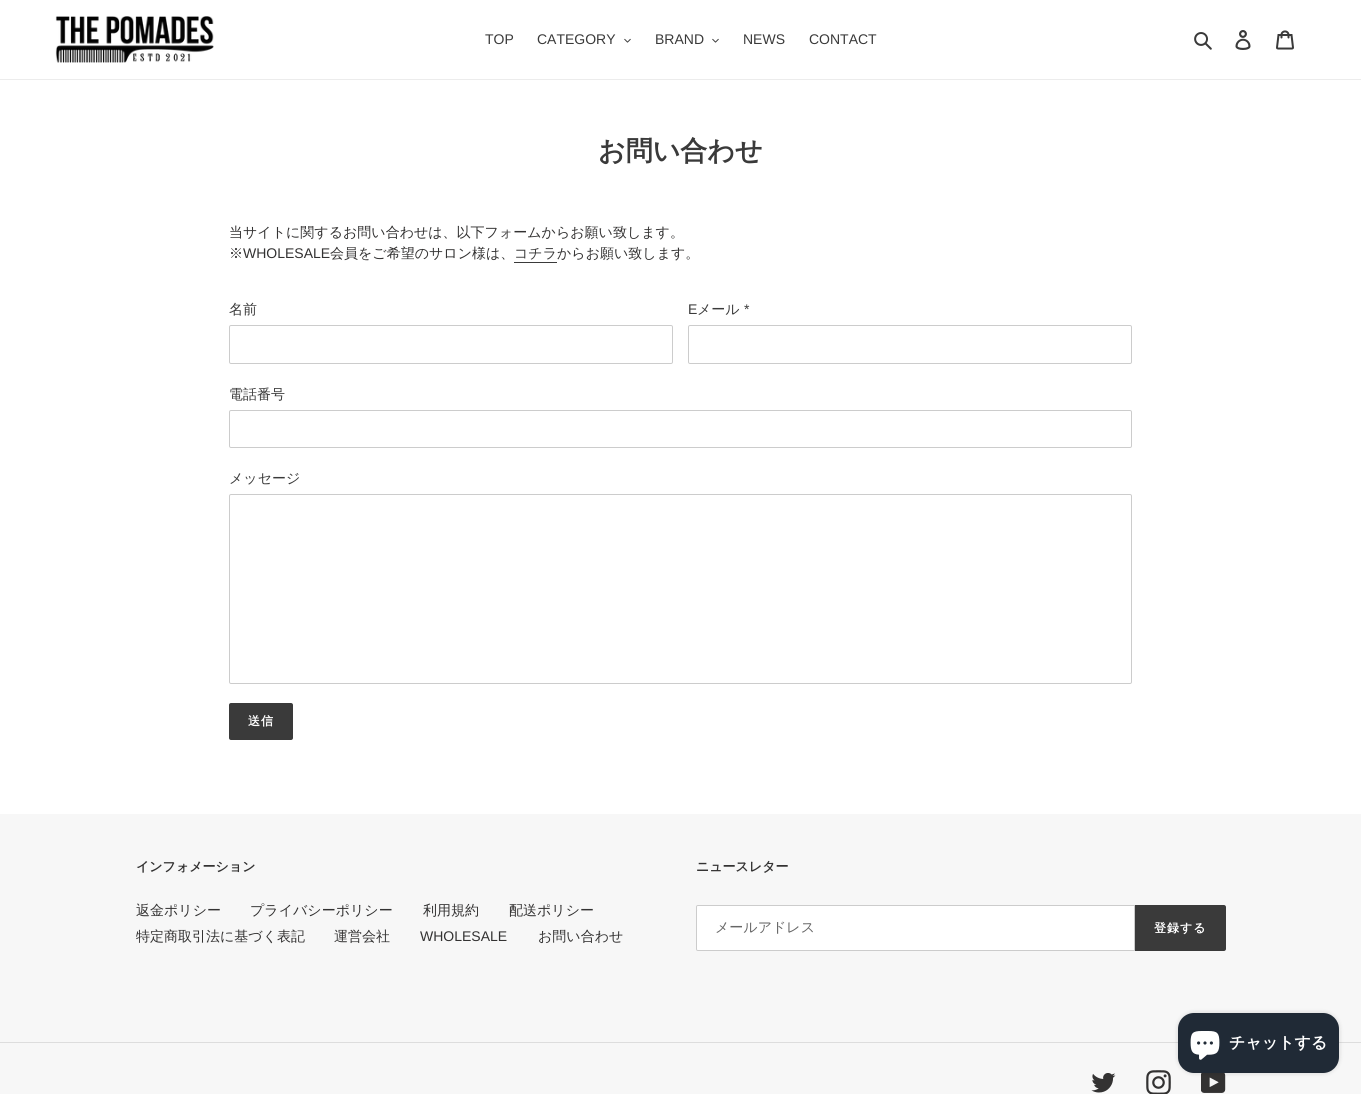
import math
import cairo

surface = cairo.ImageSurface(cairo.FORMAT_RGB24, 1361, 1094)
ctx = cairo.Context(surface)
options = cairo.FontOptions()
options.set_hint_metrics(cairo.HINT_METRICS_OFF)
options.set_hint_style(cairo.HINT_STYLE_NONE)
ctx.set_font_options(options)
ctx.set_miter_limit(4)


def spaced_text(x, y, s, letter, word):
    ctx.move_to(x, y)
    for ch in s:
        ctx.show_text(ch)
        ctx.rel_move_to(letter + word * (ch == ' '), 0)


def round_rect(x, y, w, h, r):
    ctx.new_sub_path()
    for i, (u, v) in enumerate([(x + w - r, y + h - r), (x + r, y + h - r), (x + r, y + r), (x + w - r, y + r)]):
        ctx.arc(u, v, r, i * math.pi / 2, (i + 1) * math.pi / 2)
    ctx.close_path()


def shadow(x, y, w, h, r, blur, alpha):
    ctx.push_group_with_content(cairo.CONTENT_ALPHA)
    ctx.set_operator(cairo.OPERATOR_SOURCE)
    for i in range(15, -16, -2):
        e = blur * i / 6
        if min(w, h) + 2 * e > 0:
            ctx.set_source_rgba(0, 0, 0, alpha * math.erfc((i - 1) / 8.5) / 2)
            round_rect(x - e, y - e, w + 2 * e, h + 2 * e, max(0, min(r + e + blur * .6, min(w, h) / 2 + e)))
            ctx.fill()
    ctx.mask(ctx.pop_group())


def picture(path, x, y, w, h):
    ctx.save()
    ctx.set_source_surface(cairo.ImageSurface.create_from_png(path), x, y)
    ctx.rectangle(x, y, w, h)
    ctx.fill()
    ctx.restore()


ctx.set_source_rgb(1, 1, 1)
ctx.paint()
ctx.set_source_rgb(0.922, 0.922, 0.922)
ctx.rectangle(0, 79, 1361, 1)
ctx.fill()
picture("img1.png", 55, 16, 159, 47)
ctx.select_font_face("Liberation Sans")
ctx.set_font_size(14)
ctx.set_source_rgb(0.227, 0.227, 0.227)
ctx.move_to(485, 44)
ctx.show_text("TOP")
ctx.move_to(537, 44)
ctx.show_text("CATEGORY")
picture("img2.png", 624, 38, 7, 5)
ctx.move_to(655, 44)
ctx.show_text("BRAND")
picture("img2.png", 712, 38, 7, 5)
ctx.move_to(743, 44)
ctx.show_text("NEWS")
ctx.move_to(809, 44)
ctx.show_text("CONTACT")
picture("img3.png", 1194, 32, 18, 18)
picture("img4.png", 1235, 30, 16, 20)
picture("img5.png", 1276, 30, 18, 20)
ctx.select_font_face("WenQuanYi Zen Hei", cairo.FONT_SLANT_NORMAL, cairo.FONT_WEIGHT_BOLD)
ctx.set_font_size(27)
ctx.move_to(598, 160)
ctx.show_text("お問い合わせ")
ctx.select_font_face("WenQuanYi Zen Hei Medium")
ctx.set_font_size(14)
ctx.set_source_rgb(0.2, 0.196, 0.196)
ctx.move_to(229, 237)
ctx.show_text("当サイトに関するお問い合わせは、以下フォームからお願い致します。")
ctx.move_to(229, 258)
ctx.show_text("※")
ctx.select_font_face("Liberation Sans")
ctx.move_to(243, 258)
ctx.show_text("WHOLESALE")
ctx.select_font_face("WenQuanYi Zen Hei Medium")
ctx.move_to(330, 258)
ctx.show_text("会員をご希望のサロン様は、")
ctx.set_source_rgb(0.227, 0.227, 0.227)
ctx.move_to(514, 258)
ctx.show_text("コチラ")
ctx.rectangle(514, 262, 43, 1)
ctx.fill()
ctx.set_source_rgb(0.2, 0.196, 0.196)
ctx.move_to(557, 258)
ctx.show_text("からお願い致します。")
ctx.set_source_rgb(0.227, 0.227, 0.227)
ctx.move_to(229, 314)
ctx.show_text("名前")
round_rect(229.5, 325.5, 443, 38, 1.5)
ctx.set_source_rgb(0.8, 0.8, 0.8)
ctx.set_line_width(1)
ctx.stroke()
ctx.select_font_face("Liberation Sans")
ctx.set_source_rgb(0.227, 0.227, 0.227)
ctx.move_to(688, 314)
ctx.show_text("E")
ctx.select_font_face("WenQuanYi Zen Hei Medium")
ctx.move_to(697, 314)
ctx.show_text("メール")
ctx.select_font_face("Liberation Sans")
ctx.move_to(744, 314)
ctx.show_text("*")
round_rect(688.5, 325.5, 443, 38, 1.5)
ctx.set_source_rgb(0.8, 0.8, 0.8)
ctx.stroke()
ctx.select_font_face("WenQuanYi Zen Hei Medium")
ctx.set_source_rgb(0.227, 0.227, 0.227)
ctx.move_to(229, 399)
ctx.show_text("電話番号")
round_rect(229.5, 410.5, 902, 37, 1.5)
ctx.set_source_rgb(0.8, 0.8, 0.8)
ctx.stroke()
ctx.set_source_rgb(0.227, 0.227, 0.227)
ctx.move_to(229, 483)
ctx.show_text("メッセージ")
round_rect(229.5, 494.5, 902, 189, 1.5)
ctx.set_source_rgb(0.8, 0.8, 0.8)
ctx.stroke()
ctx.set_source_rgb(0.227, 0.227, 0.227)
round_rect(229, 703, 64, 37, 2)
ctx.fill()
ctx.select_font_face("WenQuanYi Zen Hei", cairo.FONT_SLANT_NORMAL, cairo.FONT_WEIGHT_BOLD)
ctx.set_font_size(12)
ctx.set_source_rgb(1, 1, 1)
spaced_text(248, 725, "送信", 1, 0)
ctx.set_source_rgb(0.965, 0.965, 0.965)
ctx.rectangle(0, 814, 1361, 280)
ctx.fill()
ctx.set_font_size(13)
ctx.set_source_rgb(0.2, 0.196, 0.196)
ctx.move_to(136, 871)
ctx.show_text("インフォメーション")
ctx.select_font_face("WenQuanYi Zen Hei Medium")
ctx.set_font_size(14)
ctx.move_to(136, 915)
ctx.show_text("返金ポリシー")
ctx.move_to(250, 915)
ctx.show_text("プライバシーポリシー")
ctx.move_to(423, 915)
ctx.show_text("利用規約")
ctx.move_to(509, 915)
ctx.show_text("配送ポリシー")
ctx.move_to(136, 941)
ctx.show_text("特定商取引法に基づく表記")
ctx.move_to(334, 941)
ctx.show_text("運営会社")
ctx.select_font_face("Liberation Sans")
ctx.move_to(420, 941)
ctx.show_text("WHOLESALE")
ctx.select_font_face("WenQuanYi Zen Hei Medium")
ctx.move_to(538, 941)
ctx.show_text("お問い合わせ")
ctx.select_font_face("WenQuanYi Zen Hei", cairo.FONT_SLANT_NORMAL, cairo.FONT_WEIGHT_BOLD)
ctx.set_font_size(13)
ctx.move_to(696, 871)
ctx.show_text("ニュースレター")
ctx.set_source_rgb(1, 1, 1)
ctx.new_path()
ctx.move_to(698, 905.5)
ctx.line_to(1134.5, 905.5)
ctx.line_to(1134.5, 950.5)
ctx.line_to(698, 950.5)
ctx.curve_to(697, 950.5, 696.5, 950, 696.5, 949)
ctx.line_to(696.5, 907)
ctx.curve_to(696.5, 906, 697, 905.5, 698, 905.5)
ctx.close_path()
ctx.fill_preserve()
ctx.set_source_rgb(0.8, 0.8, 0.8)
ctx.stroke()
ctx.select_font_face("WenQuanYi Zen Hei Medium")
ctx.set_font_size(14)
ctx.set_source_rgb(0.4, 0.4, 0.4)
ctx.move_to(715, 932)
ctx.show_text("メールアドレス")
ctx.set_source_rgb(0.227, 0.227, 0.227)
ctx.new_path()
ctx.move_to(1135, 905)
ctx.line_to(1224, 905)
ctx.curve_to(1225, 905, 1226, 906, 1226, 907)
ctx.line_to(1226, 949)
ctx.curve_to(1226, 950, 1225, 951, 1224, 951)
ctx.line_to(1135, 951)
ctx.close_path()
ctx.fill()
ctx.select_font_face("WenQuanYi Zen Hei", cairo.FONT_SLANT_NORMAL, cairo.FONT_WEIGHT_BOLD)
ctx.set_font_size(12)
ctx.set_source_rgb(1, 1, 1)
spaced_text(1154, 932, "登録する", 1, 0)
ctx.set_source_rgb(0.867, 0.867, 0.867)
ctx.rectangle(0, 1042, 1361, 1)
ctx.fill()
picture("img6.png", 1091, 1073, 25, 20)
picture("img7.png", 1146, 1070, 25, 24)
picture("img8.png", 1201, 1073, 25, 20)
ctx.set_source_rgb(0, 0, 0)
shadow(1178, 1013, 161, 60, 16, 2.5, 0.15)
ctx.set_source_rgb(0.125, 0.165, 0.212)
round_rect(1178, 1013, 161, 60, 16)
ctx.fill()
picture("img9.png", 1190, 1031, 30, 29)
ctx.set_font_size(16)
ctx.set_source_rgb(1, 1, 1)
ctx.move_to(1229, 1048)
ctx.show_text("チャットする")
surface.write_to_png("page.png")
